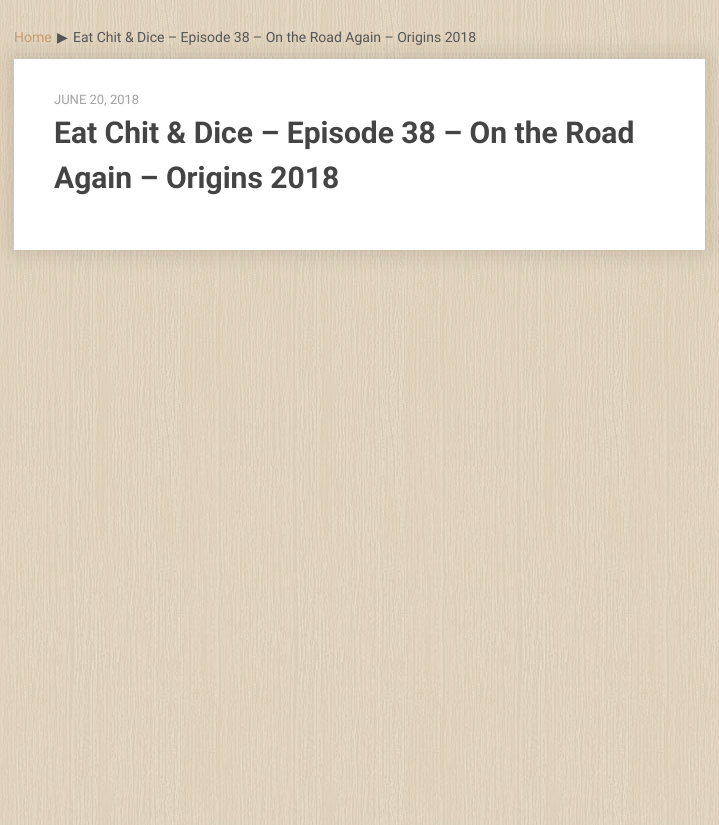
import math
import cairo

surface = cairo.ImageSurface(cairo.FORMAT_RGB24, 719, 825)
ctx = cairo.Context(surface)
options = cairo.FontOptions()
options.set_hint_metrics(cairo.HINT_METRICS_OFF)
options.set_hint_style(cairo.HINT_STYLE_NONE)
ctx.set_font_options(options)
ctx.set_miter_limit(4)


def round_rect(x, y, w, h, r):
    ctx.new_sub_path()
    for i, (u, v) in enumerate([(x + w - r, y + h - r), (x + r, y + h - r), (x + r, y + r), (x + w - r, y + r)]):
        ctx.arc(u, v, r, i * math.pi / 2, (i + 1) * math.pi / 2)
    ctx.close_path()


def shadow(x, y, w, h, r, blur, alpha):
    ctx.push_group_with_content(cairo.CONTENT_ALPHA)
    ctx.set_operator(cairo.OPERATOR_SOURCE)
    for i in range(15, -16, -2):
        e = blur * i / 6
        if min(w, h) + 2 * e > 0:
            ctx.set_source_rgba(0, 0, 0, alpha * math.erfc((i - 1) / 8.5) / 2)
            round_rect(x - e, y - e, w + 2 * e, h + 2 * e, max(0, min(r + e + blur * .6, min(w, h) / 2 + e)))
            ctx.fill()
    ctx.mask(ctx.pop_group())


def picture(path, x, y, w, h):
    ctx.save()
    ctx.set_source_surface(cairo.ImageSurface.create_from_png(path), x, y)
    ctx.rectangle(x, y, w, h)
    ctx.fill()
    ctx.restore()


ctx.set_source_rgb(1, 1, 1)
ctx.paint()
picture("img1.png", 0, 0, 719, 825)
ctx.set_source_rgb(0, 0, 0)
shadow(14, 59, 691, 191, 0, 12.5, 0.15)
ctx.select_font_face("Roboto")
ctx.set_font_size(14)
ctx.set_source_rgb(0.776, 0.612, 0.427)
ctx.move_to(14, 42)
ctx.show_text("Home")
ctx.select_font_face("DejaVu Sans")
ctx.set_source_rgb(0.333, 0.333, 0.333)
ctx.move_to(57, 42)
ctx.show_text("▶")
ctx.select_font_face("Roboto")
ctx.move_to(73, 42)
ctx.show_text("Eat Chit & Dice – Episode 38 – On the Road Again – Origins 2018")
ctx.set_source_rgb(1, 1, 1)
ctx.rectangle(14, 59, 691, 191)
ctx.fill()
ctx.set_font_size(13)
ctx.set_source_rgb(0.635, 0.635, 0.635)
ctx.move_to(54, 104)
ctx.show_text("JUNE 20, 2018")
ctx.select_font_face("Roboto", cairo.FONT_SLANT_NORMAL, cairo.FONT_WEIGHT_BOLD)
ctx.set_font_size(30)
ctx.set_source_rgb(0.267, 0.267, 0.267)
ctx.move_to(54, 143)
ctx.show_text("Eat Chit & Dice – Episode 38 – On the Road")
ctx.move_to(54, 188)
ctx.show_text("Again – Origins 2018")
surface.write_to_png("page.png")
